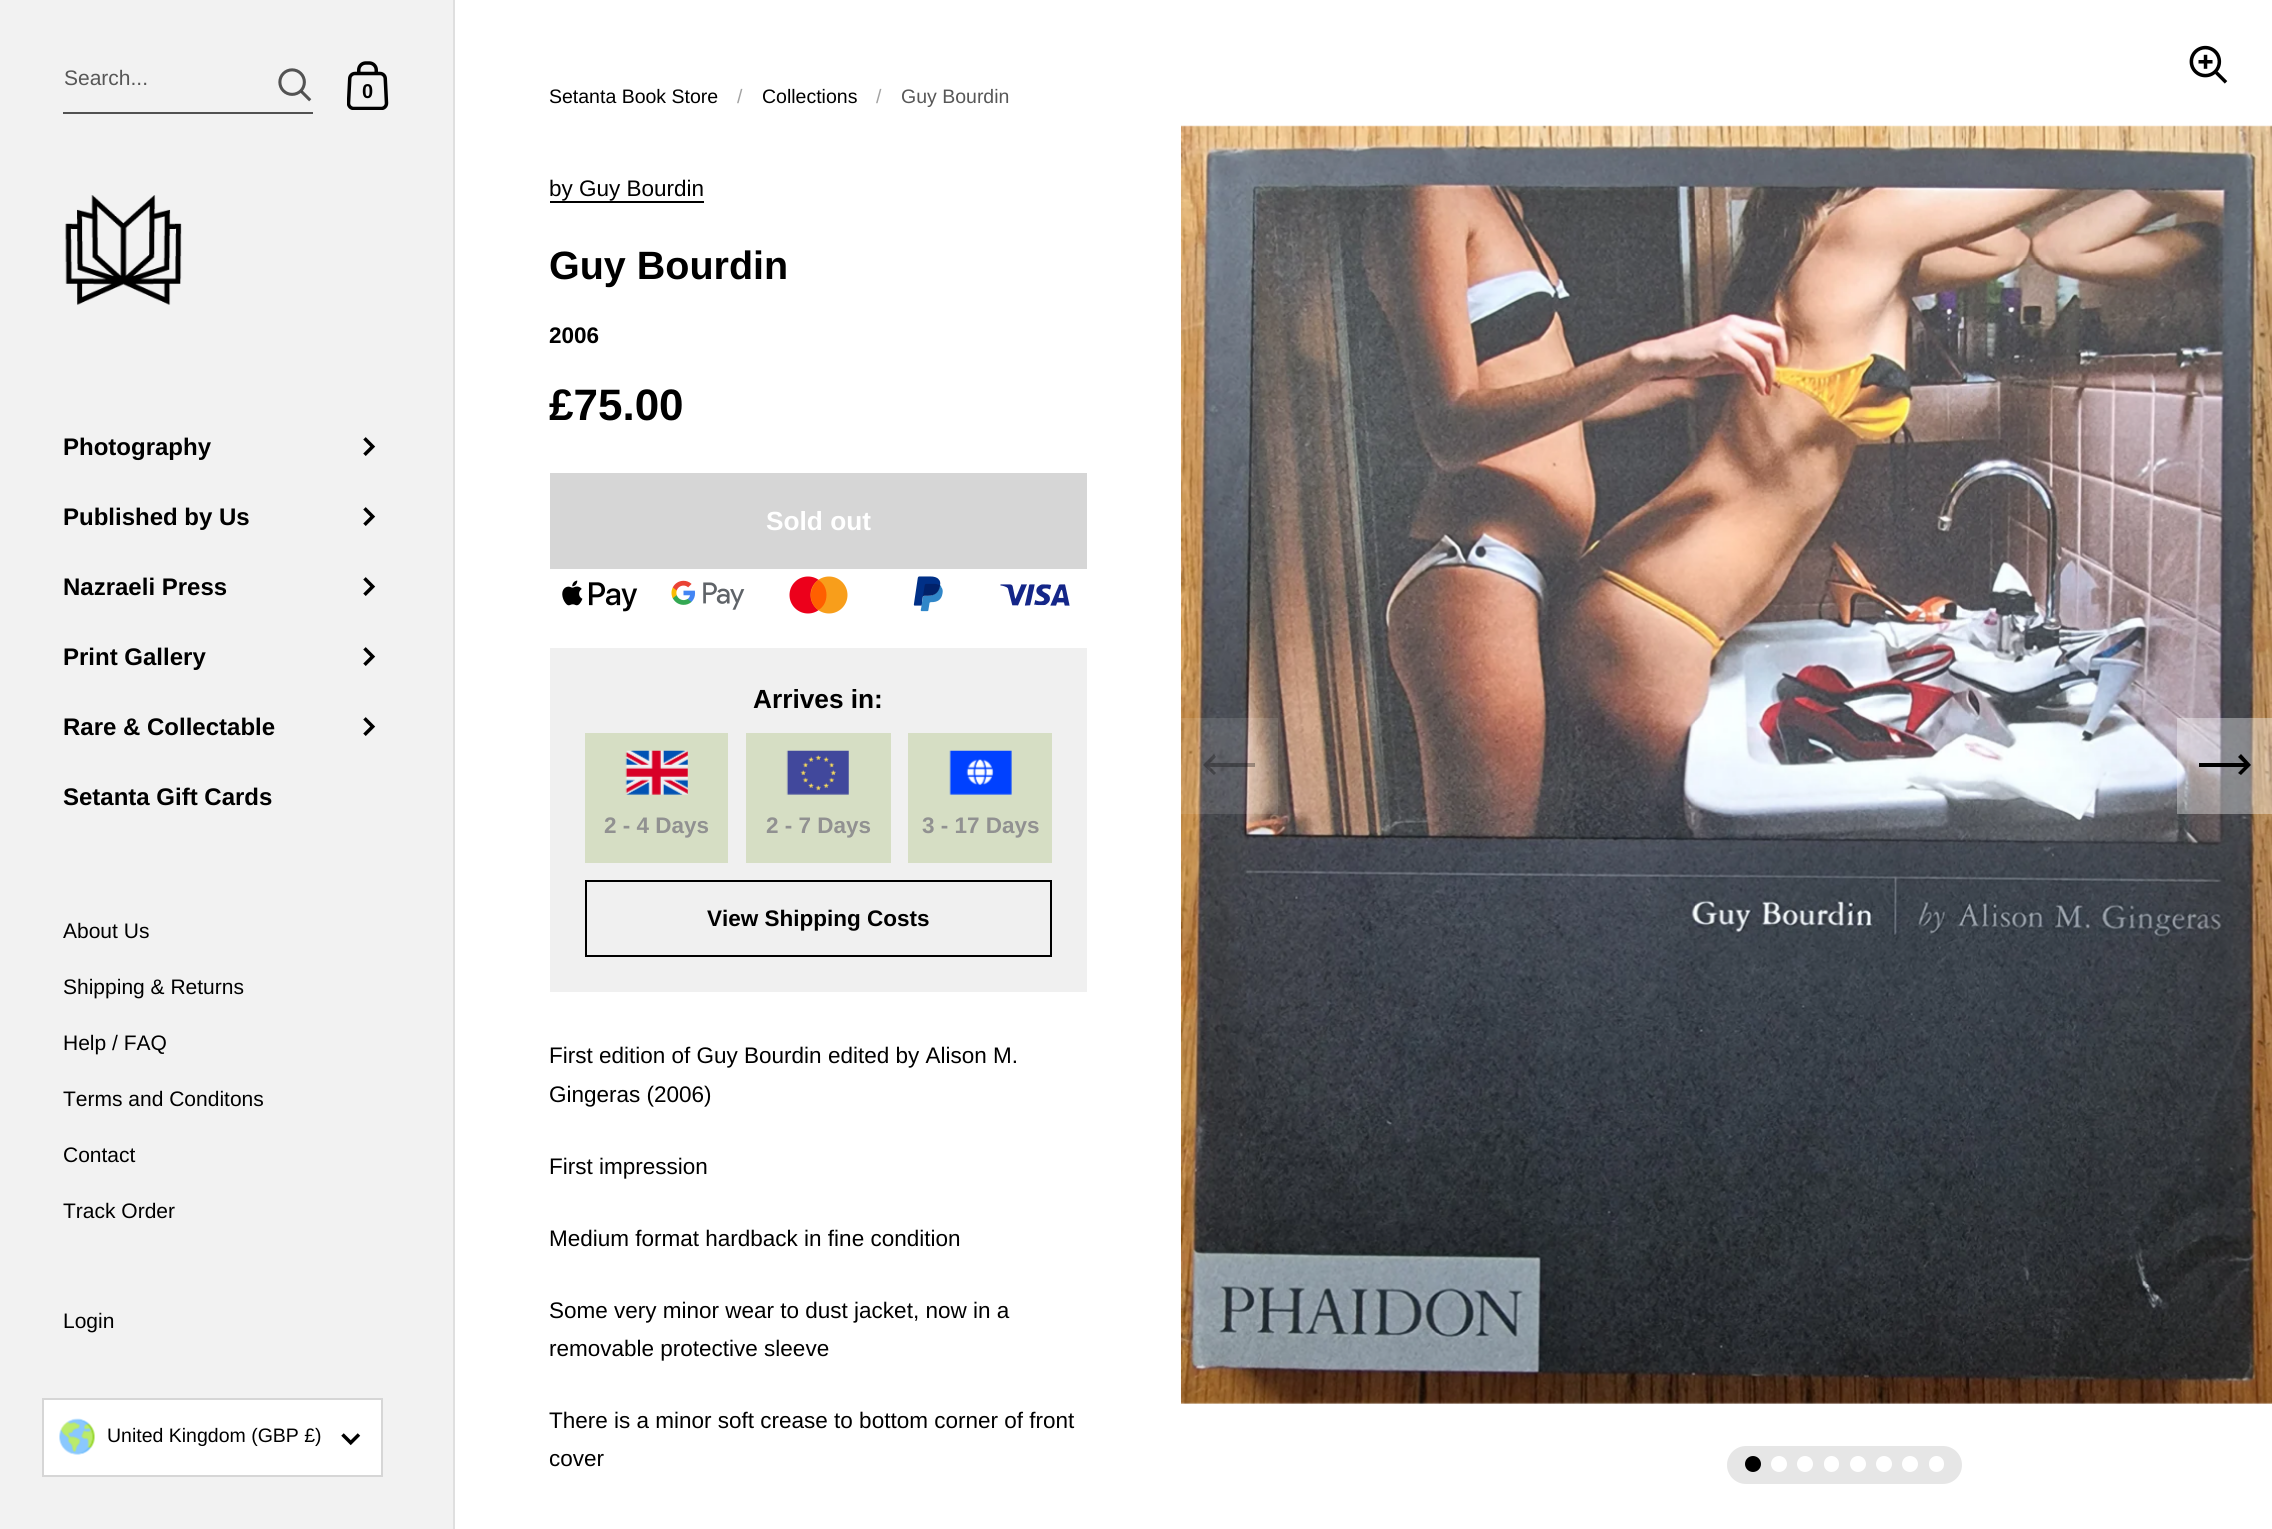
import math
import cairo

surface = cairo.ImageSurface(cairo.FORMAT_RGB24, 2272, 1529)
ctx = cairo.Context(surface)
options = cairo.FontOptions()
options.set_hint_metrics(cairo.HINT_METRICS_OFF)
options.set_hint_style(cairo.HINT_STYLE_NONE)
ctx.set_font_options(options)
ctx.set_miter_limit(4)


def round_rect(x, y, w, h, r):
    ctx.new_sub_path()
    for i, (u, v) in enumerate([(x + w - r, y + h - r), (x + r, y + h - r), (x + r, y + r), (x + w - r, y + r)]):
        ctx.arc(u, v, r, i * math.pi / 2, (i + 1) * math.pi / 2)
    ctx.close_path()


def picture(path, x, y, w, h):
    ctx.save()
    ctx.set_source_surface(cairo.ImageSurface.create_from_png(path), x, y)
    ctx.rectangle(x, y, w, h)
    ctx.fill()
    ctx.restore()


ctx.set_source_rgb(1, 1, 1)
ctx.paint()
ctx.set_source_rgb(0.949, 0.949, 0.949)
ctx.rectangle(0, 0, 453, 1529)
ctx.fill()
ctx.set_source_rgb(0.875, 0.875, 0.875)
ctx.rectangle(453, 0, 2, 1529)
ctx.fill()
ctx.set_source_rgb(0.322, 0.322, 0.322)
ctx.rectangle(63, 112, 250, 2)
ctx.fill()
ctx.select_font_face("Liberation Sans")
ctx.set_font_size(21)
ctx.set_source_rgb(0.341, 0.341, 0.341)
ctx.move_to(64, 85)
ctx.show_text("Search...")
picture("img1.png", 278, 68, 34, 34)
picture("img2.png", 347, 61, 42, 49)
ctx.select_font_face("Liberation Sans", cairo.FONT_SLANT_NORMAL, cairo.FONT_WEIGHT_BOLD)
ctx.set_font_size(20)
ctx.set_source_rgb(0, 0, 0)
ctx.move_to(362, 98)
ctx.show_text("0")
picture("img3.png", 65, 195, 117, 110)
ctx.set_font_size(24)
ctx.move_to(63, 455)
ctx.show_text("Photography")
picture("img4.png", 363, 437, 13, 19)
ctx.move_to(63, 525)
ctx.show_text("Published by Us")
picture("img4.png", 363, 507, 13, 19)
ctx.move_to(63, 595)
ctx.show_text("Nazraeli Press")
picture("img4.png", 363, 577, 13, 19)
ctx.move_to(63, 665)
ctx.show_text("Print Gallery")
picture("img4.png", 363, 647, 13, 19)
ctx.move_to(63, 735)
ctx.show_text("Rare & Collectable")
picture("img4.png", 363, 717, 13, 19)
ctx.move_to(63, 805)
ctx.show_text("Setanta Gift Cards")
ctx.select_font_face("Liberation Sans")
ctx.set_font_size(21)
ctx.move_to(63, 938)
ctx.show_text("About Us")
ctx.move_to(63, 994)
ctx.show_text("Shipping & Returns")
ctx.move_to(63, 1050)
ctx.show_text("Help / FAQ")
ctx.move_to(63, 1106)
ctx.show_text("Terms and Conditons")
ctx.move_to(63, 1162)
ctx.show_text("Contact")
ctx.move_to(63, 1218)
ctx.show_text("Track Order")
ctx.move_to(63, 1328)
ctx.show_text("Login")
ctx.set_source_rgb(1, 1, 1)
ctx.rectangle(44, 1400, 337, 75)
ctx.fill()
picture("img5.png", 341, 1433, 20, 13)
ctx.rectangle(43, 1399, 339, 77)
ctx.set_source_rgb(0.839, 0.839, 0.839)
ctx.stroke()
picture("img6.png", 59, 1418, 36, 37)
ctx.set_font_size(19.5)
ctx.set_source_rgb(0, 0, 0)
ctx.move_to(107, 1442)
ctx.show_text("United Kingdom (GBP £)")
ctx.move_to(549, 103)
ctx.show_text("Setanta Book Store")
ctx.set_source_rgb(0.639, 0.639, 0.639)
ctx.move_to(737, 103)
ctx.show_text("/")
ctx.set_source_rgb(0, 0, 0)
ctx.move_to(762, 103)
ctx.show_text("Collections")
ctx.set_source_rgb(0.639, 0.639, 0.639)
ctx.move_to(876, 103)
ctx.show_text("/")
ctx.set_source_rgb(0.341, 0.341, 0.341)
ctx.move_to(901, 103)
ctx.show_text("Guy Bourdin")
ctx.set_font_size(22.5)
ctx.set_source_rgb(0, 0, 0)
ctx.move_to(549, 196)
ctx.show_text("by Guy Bourdin")
ctx.rectangle(550, 201, 154, 2)
ctx.fill()
ctx.select_font_face("Liberation Sans", cairo.FONT_SLANT_NORMAL, cairo.FONT_WEIGHT_BOLD)
ctx.set_font_size(39.5)
ctx.move_to(549, 279)
ctx.show_text("Guy Bourdin")
ctx.set_font_size(22.5)
ctx.move_to(549, 343)
ctx.show_text("2006")
ctx.set_font_size(44)
ctx.move_to(549, 420)
ctx.show_text("£75.00")
ctx.set_source_rgb(0.839, 0.839, 0.839)
ctx.rectangle(550, 473, 537, 96)
ctx.fill()
ctx.set_font_size(26.25)
ctx.set_source_rgb(1, 1, 1)
ctx.move_to(766, 530)
ctx.show_text("Sold out")
picture("img7.png", 562, 580, 76, 32)
picture("img8.png", 671, 580, 74, 30)
ctx.set_source_rgb(0.922, 0, 0.106)
ctx.arc(808, 595, 18.5, 0, 2 * math.pi)
ctx.fill()
ctx.set_source_rgb(0.969, 0.62, 0.106)
ctx.arc(829, 595, 18.5, 0, 2 * math.pi)
ctx.fill()
ctx.set_source_rgb(1, 0.373, 0)
ctx.new_path()
ctx.move_to(826.5, 595)
ctx.curve_to(826.5, 588.5, 823.5, 583, 818.5, 580)
ctx.curve_to(808.5, 587.5, 808, 603, 818.5, 610)
ctx.curve_to(823.5, 607, 826.5, 601.5, 826.5, 595)
ctx.close_path()
ctx.fill()
picture("img9.png", 913, 576, 30, 36)
picture("img10.png", 1000, 584, 70, 22)
ctx.set_source_rgb(0.941, 0.941, 0.941)
ctx.rectangle(550, 648, 537, 344)
ctx.fill()
ctx.set_source_rgb(0, 0, 0)
ctx.move_to(753, 708)
ctx.show_text("Arrives in:")
ctx.set_source_rgb(0.839, 0.871, 0.769)
ctx.rectangle(585, 733, 143, 130)
ctx.fill()
picture("img11.png", 625, 750, 63, 45)
ctx.set_font_size(22.5)
ctx.set_source_rgb(0.569, 0.569, 0.569)
ctx.move_to(604, 833)
ctx.show_text("2 - 4 Days")
ctx.set_source_rgb(0.839, 0.871, 0.769)
ctx.rectangle(746, 733, 145, 130)
ctx.fill()
picture("img12.png", 786, 750, 63, 45)
ctx.set_source_rgb(0.569, 0.569, 0.569)
ctx.move_to(766, 833)
ctx.show_text("2 - 7 Days")
ctx.set_source_rgb(0.839, 0.871, 0.769)
ctx.rectangle(908, 733, 144, 130)
ctx.fill()
picture("img13.png", 949, 750, 63, 45)
ctx.set_source_rgb(0.569, 0.569, 0.569)
ctx.move_to(922, 833)
ctx.show_text("3 - 17 Days")
ctx.rectangle(586, 881, 465, 75)
ctx.set_source_rgb(0, 0, 0)
ctx.stroke()
ctx.move_to(707, 926)
ctx.show_text("View Shipping Costs")
ctx.select_font_face("Liberation Sans")
ctx.move_to(549, 1063)
ctx.show_text("First edition of Guy Bourdin edited by Alison M.")
ctx.move_to(549, 1102)
ctx.show_text("Gingeras (2006)")
ctx.move_to(549, 1174)
ctx.show_text("First impression")
ctx.move_to(549, 1246)
ctx.show_text("Medium format hardback in fine condition")
ctx.move_to(549, 1318)
ctx.show_text("Some very minor wear to dust jacket, now in a")
ctx.move_to(549, 1356)
ctx.show_text("removable protective sleeve")
ctx.move_to(549, 1428)
ctx.show_text("There is a minor soft crease to bottom corner of front")
ctx.move_to(549, 1466)
ctx.show_text("cover")
picture("img14.png", 2189, 45, 39, 39)
picture("img15.png", 1181, 125, 1091, 1279)
ctx.set_source_rgba(1, 1, 1, 0.11)
ctx.rectangle(1181, 718, 97, 96)
ctx.fill()
ctx.set_source_rgba(0, 0, 0, 0.3)
ctx.new_path()
ctx.move_to(1214, 775)
ctx.line_to(1216, 773)
ctx.line_to(1210, 767)
ctx.line_to(1255, 767)
ctx.line_to(1255, 763)
ctx.line_to(1210, 763)
ctx.line_to(1216, 757)
ctx.line_to(1214, 754)
ctx.line_to(1203, 765)
ctx.close_path()
ctx.fill()
ctx.set_source_rgba(1, 1, 1, 0.36)
ctx.rectangle(2177, 718, 95, 96)
ctx.fill()
ctx.set_source_rgb(0, 0, 0)
ctx.new_path()
ctx.move_to(2241, 754)
ctx.line_to(2238, 757)
ctx.line_to(2244, 763)
ctx.line_to(2199, 763)
ctx.line_to(2199, 767)
ctx.line_to(2244, 767)
ctx.line_to(2238, 773)
ctx.line_to(2241, 775)
ctx.line_to(2251, 765)
ctx.close_path()
ctx.fill()
ctx.set_source_rgb(0.902, 0.902, 0.902)
round_rect(1727, 1446, 235, 38, 19)
ctx.fill()
ctx.set_source_rgb(0, 0, 0)
ctx.arc(1753, 1464, 8, 0, 2 * math.pi)
ctx.fill()
ctx.set_source_rgb(1, 1, 1)
ctx.arc(1779, 1464, 8, 0, 2 * math.pi)
ctx.fill()
ctx.arc(1805, 1464, 8, 0, 2 * math.pi)
ctx.fill()
round_rect(1824, 1456, 15, 16, 7.5)
ctx.fill()
ctx.arc(1858, 1464, 8, 0, 2 * math.pi)
ctx.fill()
ctx.arc(1884, 1464, 8, 0, 2 * math.pi)
ctx.fill()
ctx.arc(1910, 1464, 8, 0, 2 * math.pi)
ctx.fill()
round_rect(1929, 1456, 15, 16, 7.5)
ctx.fill()
surface.write_to_png("page.png")
